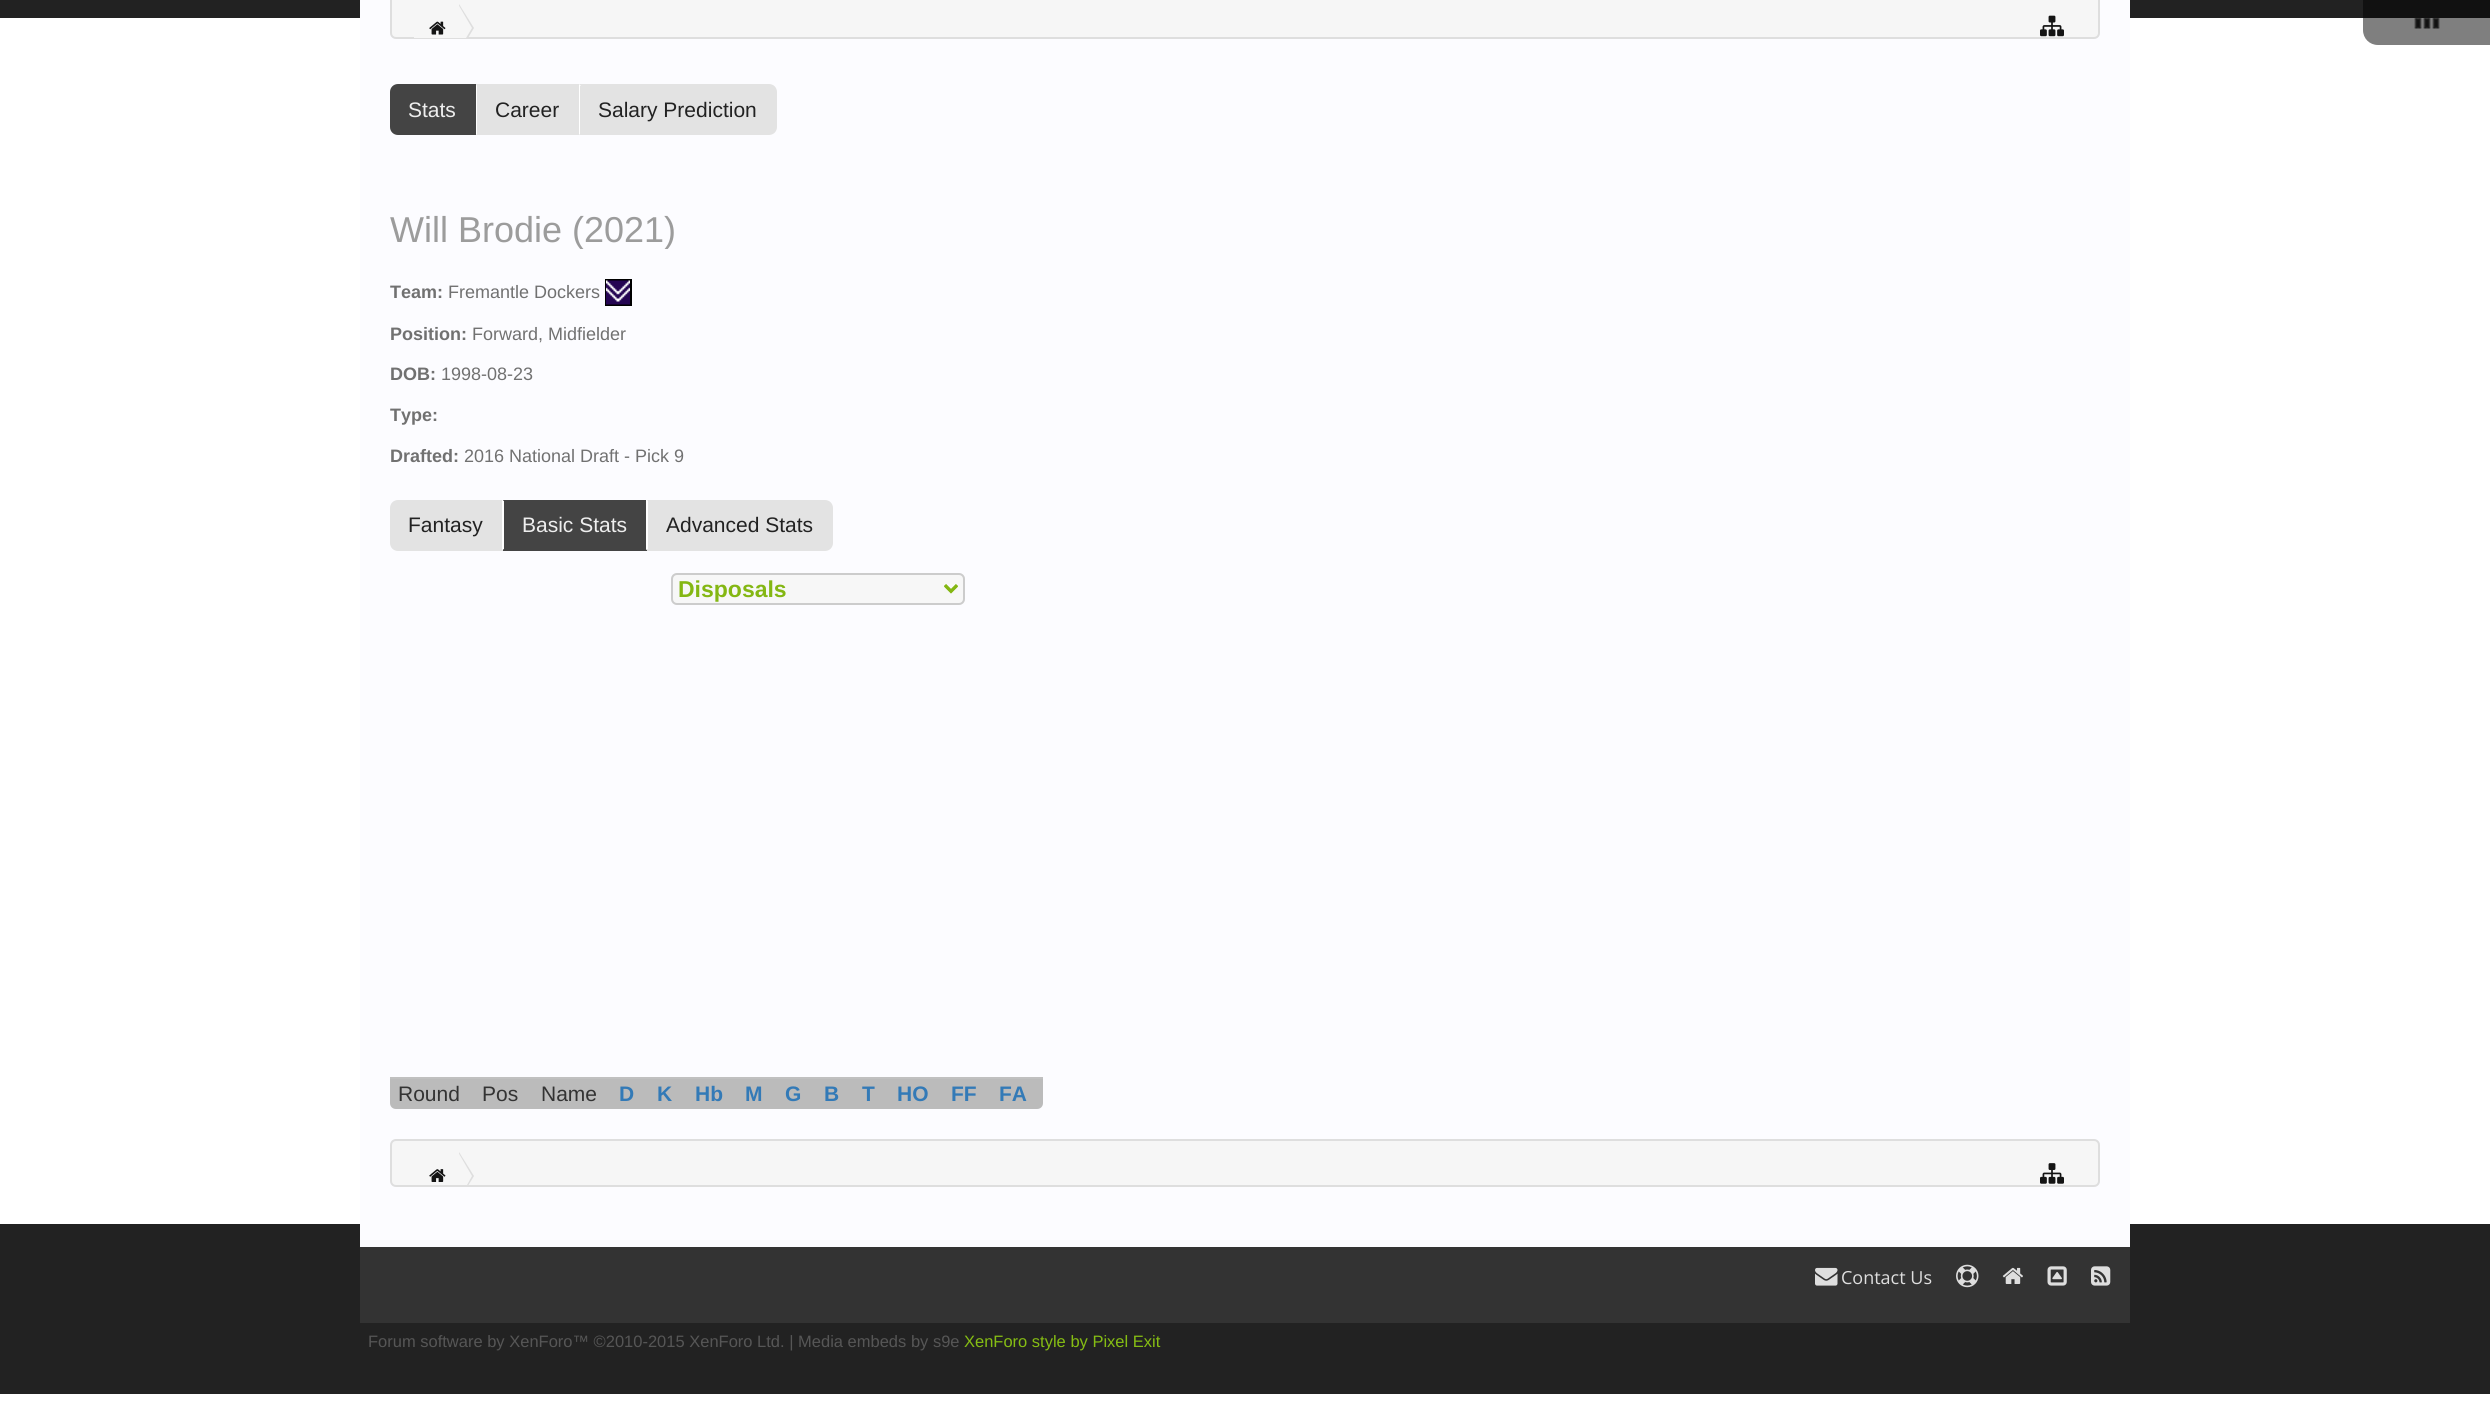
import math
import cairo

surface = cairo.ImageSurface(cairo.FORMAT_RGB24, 2490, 1419)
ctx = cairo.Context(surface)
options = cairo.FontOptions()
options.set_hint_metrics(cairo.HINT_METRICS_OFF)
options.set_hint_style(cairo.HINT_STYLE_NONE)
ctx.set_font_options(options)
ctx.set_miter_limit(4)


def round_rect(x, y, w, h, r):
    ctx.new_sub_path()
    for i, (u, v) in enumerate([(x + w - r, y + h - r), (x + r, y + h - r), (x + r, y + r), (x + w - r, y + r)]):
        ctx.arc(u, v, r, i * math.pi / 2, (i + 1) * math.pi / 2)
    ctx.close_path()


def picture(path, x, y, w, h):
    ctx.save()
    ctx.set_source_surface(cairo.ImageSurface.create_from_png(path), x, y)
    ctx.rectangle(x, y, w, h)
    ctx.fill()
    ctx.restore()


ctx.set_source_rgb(1, 1, 1)
ctx.paint()
ctx.set_source_rgb(0.133, 0.133, 0.133)
ctx.rectangle(0, 0, 2490, 18)
ctx.fill()
ctx.set_source_rgba(0, 0, 0, 0.5)
ctx.new_path()
ctx.move_to(2363, 0)
ctx.line_to(2490, 0)
ctx.line_to(2490, 45)
ctx.line_to(2378, 45)
ctx.curve_to(2369.5, 45, 2363, 38.5, 2363, 30)
ctx.close_path()
ctx.fill()
picture("img1.png", 2414, 18, 26, 11)
ctx.set_source_rgb(0.133, 0.133, 0.133)
ctx.rectangle(0, 1224, 2490, 170)
ctx.fill()
ctx.set_source_rgb(0.988, 0.988, 1)
ctx.rectangle(360, 0, 1770, 1247)
ctx.fill()
ctx.set_source_rgb(0.961, 0.961, 0.961)
round_rect(391, -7, 1708, 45, 5)
ctx.fill_preserve()
ctx.set_source_rgb(0.871, 0.871, 0.871)
ctx.stroke()
ctx.set_source_rgb(0.961, 0.961, 0.961)
ctx.new_path()
ctx.move_to(422, 5)
ctx.line_to(461, 5)
ctx.line_to(461, 38)
ctx.line_to(414, 38)
ctx.line_to(414, 13)
ctx.curve_to(414, 8.5, 417.5, 5, 422, 5)
ctx.close_path()
ctx.fill()
picture("img2.png", 429, 21, 17, 14)
ctx.set_source_rgb(0.871, 0.871, 0.871)
ctx.new_path()
ctx.move_to(468, 38)
ctx.line_to(459, 38)
ctx.line_to(459, 4)
ctx.line_to(474, 28)
ctx.close_path()
ctx.fill()
ctx.set_source_rgb(0.961, 0.961, 0.961)
ctx.new_path()
ctx.move_to(466, 38)
ctx.line_to(458, 38)
ctx.line_to(458, 4)
ctx.line_to(472, 28)
ctx.close_path()
ctx.fill()
picture("img3.png", 2040, 15, 24, 22)
ctx.set_source_rgb(0.267, 0.267, 0.267)
ctx.new_path()
ctx.move_to(398, 84)
ctx.line_to(476, 84)
ctx.line_to(476, 135)
ctx.line_to(398, 135)
ctx.curve_to(393.5, 135, 390, 131.5, 390, 127)
ctx.line_to(390, 92)
ctx.curve_to(390, 87.5, 393.5, 84, 398, 84)
ctx.close_path()
ctx.fill()
ctx.select_font_face("Liberation Sans")
ctx.set_font_size(21)
ctx.set_source_rgb(0.933, 0.933, 0.933)
ctx.move_to(408, 117)
ctx.show_text("Stats")
ctx.set_source_rgb(0.89, 0.89, 0.89)
ctx.rectangle(476, 84, 103, 51)
ctx.fill()
ctx.set_source_rgb(1, 1, 1)
ctx.new_path()
ctx.move_to(476, 135)
ctx.line_to(476, 84)
ctx.line_to(477, 86)
ctx.line_to(477, 134)
ctx.close_path()
ctx.fill()
ctx.set_source_rgb(0.133, 0.133, 0.133)
ctx.move_to(495, 117)
ctx.show_text("Career")
ctx.set_source_rgb(0.89, 0.89, 0.89)
ctx.new_path()
ctx.move_to(579, 84)
ctx.line_to(769, 84)
ctx.curve_to(773.5, 84, 777, 87.5, 777, 92)
ctx.line_to(777, 127)
ctx.curve_to(777, 131.5, 773.5, 135, 769, 135)
ctx.line_to(579, 135)
ctx.close_path()
ctx.fill()
ctx.set_source_rgb(1, 1, 1)
ctx.new_path()
ctx.move_to(579, 84)
ctx.line_to(579, 135)
ctx.line_to(580, 134)
ctx.line_to(580, 86)
ctx.line_to(581, 86)
ctx.close_path()
ctx.fill()
ctx.set_source_rgb(0.133, 0.133, 0.133)
ctx.move_to(598, 117)
ctx.show_text("Salary Prediction")
ctx.save()
ctx.rectangle(390, 210, 1710, 39)
ctx.clip()
ctx.set_font_size(36)
ctx.set_source_rgb(0.612, 0.612, 0.612)
ctx.move_to(390, 242)
ctx.show_text("Will Brodie (2021)")
ctx.restore()
ctx.rectangle(606, 280, 25, 25)
ctx.set_source_rgb(0, 0, 0)
ctx.stroke()
ctx.select_font_face("Liberation Sans", cairo.FONT_SLANT_NORMAL, cairo.FONT_WEIGHT_BOLD)
ctx.set_font_size(18)
ctx.set_source_rgb(0.443, 0.443, 0.443)
ctx.move_to(390, 298)
ctx.show_text("Team:")
ctx.select_font_face("Liberation Sans")
ctx.move_to(448, 298)
ctx.show_text("Fremantle Dockers")
picture("img4.png", 606, 280, 24, 25)
ctx.select_font_face("Liberation Sans", cairo.FONT_SLANT_NORMAL, cairo.FONT_WEIGHT_BOLD)
ctx.move_to(390, 340)
ctx.show_text("Position:")
ctx.select_font_face("Liberation Sans")
ctx.move_to(472, 340)
ctx.show_text("Forward, Midfielder")
ctx.select_font_face("Liberation Sans", cairo.FONT_SLANT_NORMAL, cairo.FONT_WEIGHT_BOLD)
ctx.move_to(390, 380)
ctx.show_text("DOB:")
ctx.select_font_face("Liberation Sans")
ctx.move_to(441, 380)
ctx.show_text("1998-08-23")
ctx.select_font_face("Liberation Sans", cairo.FONT_SLANT_NORMAL, cairo.FONT_WEIGHT_BOLD)
ctx.move_to(390, 421)
ctx.show_text("Type:")
ctx.move_to(390, 462)
ctx.show_text("Drafted:")
ctx.select_font_face("Liberation Sans")
ctx.move_to(464, 462)
ctx.show_text("2016 National Draft - Pick 9")
ctx.set_source_rgb(0.89, 0.89, 0.89)
ctx.new_path()
ctx.move_to(398, 500)
ctx.line_to(503, 500)
ctx.line_to(503, 551)
ctx.line_to(398, 551)
ctx.curve_to(393.5, 551, 390, 547.5, 390, 543)
ctx.line_to(390, 508)
ctx.curve_to(390, 503.5, 393.5, 500, 398, 500)
ctx.close_path()
ctx.fill()
ctx.set_font_size(21)
ctx.set_source_rgb(0.133, 0.133, 0.133)
ctx.move_to(408, 532)
ctx.show_text("Fantasy")
ctx.set_source_rgb(0.267, 0.267, 0.267)
ctx.rectangle(503, 500, 144, 51)
ctx.fill()
ctx.set_source_rgb(1, 1, 1)
ctx.new_path()
ctx.move_to(502, 550)
ctx.line_to(502, 500)
ctx.line_to(504, 501)
ctx.line_to(504, 549)
ctx.close_path()
ctx.fill()
ctx.set_source_rgb(0.933, 0.933, 0.933)
ctx.move_to(522, 532)
ctx.show_text("Basic Stats")
ctx.set_source_rgb(0.89, 0.89, 0.89)
ctx.new_path()
ctx.move_to(647, 500)
ctx.line_to(825, 500)
ctx.curve_to(829.5, 500, 833, 503.5, 833, 508)
ctx.line_to(833, 543)
ctx.curve_to(833, 547.5, 829.5, 551, 825, 551)
ctx.line_to(647, 551)
ctx.close_path()
ctx.fill()
ctx.set_source_rgb(1, 1, 1)
ctx.new_path()
ctx.move_to(648, 501)
ctx.line_to(648, 549)
ctx.line_to(646, 550)
ctx.line_to(646, 500)
ctx.line_to(647, 500)
ctx.close_path()
ctx.fill()
ctx.set_source_rgb(0.133, 0.133, 0.133)
ctx.move_to(666, 532)
ctx.show_text("Advanced Stats")
ctx.set_source_rgb(0.965, 0.965, 0.965)
round_rect(671, 573, 294, 32, 6)
ctx.fill()
picture("img5.png", 944, 584, 14, 9)
round_rect(672, 574, 292, 30, 5)
ctx.set_source_rgb(0.8, 0.8, 0.8)
ctx.stroke()
ctx.new_path()
ctx.move_to(945, 585.5)
ctx.line_to(951, 591.5)
ctx.line_to(957, 585.5)
ctx.set_source_rgb(0.518, 0.718, 0.078)
ctx.set_line_width(3)
ctx.stroke()
ctx.select_font_face("Liberation Sans", cairo.FONT_SLANT_NORMAL, cairo.FONT_WEIGHT_BOLD)
ctx.set_font_size(23)
ctx.move_to(678, 597)
ctx.show_text("Disposals")
ctx.set_source_rgb(0.733, 0.733, 0.733)
ctx.new_path()
ctx.move_to(390, 1077)
ctx.line_to(474, 1077)
ctx.line_to(474, 1109)
ctx.line_to(396, 1109)
ctx.curve_to(392.5, 1109, 390, 1106.5, 390, 1103)
ctx.close_path()
ctx.fill()
ctx.set_source_rgb(0.753, 0.753, 0.753)
ctx.rectangle(390, 1077, 602, 2)
ctx.fill()
ctx.select_font_face("Liberation Sans")
ctx.set_font_size(21)
ctx.set_source_rgb(0.2, 0.2, 0.2)
ctx.move_to(398, 1101)
ctx.show_text("Round")
ctx.set_source_rgb(0.733, 0.733, 0.733)
ctx.rectangle(474, 1079, 518, 30)
ctx.fill()
ctx.set_source_rgb(0.2, 0.2, 0.2)
ctx.move_to(482, 1101)
ctx.show_text("Pos")
ctx.move_to(541, 1101)
ctx.show_text("Name")
ctx.select_font_face("Liberation Sans", cairo.FONT_SLANT_NORMAL, cairo.FONT_WEIGHT_BOLD)
ctx.set_source_rgb(0.2, 0.478, 0.718)
ctx.move_to(619, 1101)
ctx.show_text("D")
ctx.move_to(657, 1101)
ctx.show_text("K")
ctx.move_to(695, 1101)
ctx.show_text("Hb")
ctx.move_to(745, 1101)
ctx.show_text("M")
ctx.move_to(785, 1101)
ctx.show_text("G")
ctx.move_to(824, 1101)
ctx.show_text("B")
ctx.move_to(862, 1101)
ctx.show_text("T")
ctx.move_to(897, 1101)
ctx.show_text("HO")
ctx.move_to(951, 1101)
ctx.show_text("FF")
ctx.set_source_rgb(0.733, 0.733, 0.733)
ctx.new_path()
ctx.move_to(992, 1077)
ctx.line_to(1043, 1077)
ctx.line_to(1043, 1103)
ctx.curve_to(1043, 1106.5, 1040.5, 1109, 1037, 1109)
ctx.line_to(992, 1109)
ctx.close_path()
ctx.fill()
ctx.set_source_rgb(0.753, 0.753, 0.753)
ctx.rectangle(992, 1077, 51, 2)
ctx.fill()
ctx.set_source_rgb(0.2, 0.478, 0.718)
ctx.move_to(999, 1101)
ctx.show_text("FA")
ctx.set_source_rgb(0.961, 0.961, 0.961)
round_rect(391, 1140, 1708, 46, 5)
ctx.fill_preserve()
ctx.set_source_rgb(0.871, 0.871, 0.871)
ctx.set_line_width(2)
ctx.stroke()
picture("img6.png", 429, 1169, 17, 13)
ctx.new_path()
ctx.move_to(468.5, 1185)
ctx.line_to(459, 1185)
ctx.line_to(459, 1152)
ctx.line_to(474, 1176)
ctx.close_path()
ctx.fill()
ctx.set_source_rgb(0.961, 0.961, 0.961)
ctx.new_path()
ctx.move_to(467, 1185)
ctx.line_to(458, 1185)
ctx.line_to(458, 1152)
ctx.line_to(472, 1176)
ctx.close_path()
ctx.fill()
picture("img7.png", 2040, 1163, 24, 21)
ctx.set_source_rgb(0.2, 0.2, 0.2)
ctx.rectangle(360, 1247, 1770, 76)
ctx.fill()
picture("img8.png", 1815, 1267, 23, 19)
ctx.select_font_face("Open Sans")
ctx.set_font_size(18)
ctx.set_source_rgb(0.871, 0.871, 0.871)
ctx.move_to(1841, 1284)
ctx.show_text("Contact Us")
picture("img9.png", 1956, 1264, 23, 24)
picture("img10.png", 2002, 1267, 21, 17)
picture("img11.png", 2047, 1266, 20, 20)
picture("img12.png", 2091, 1266, 20, 20)
ctx.select_font_face("Liberation Sans")
ctx.set_font_size(16.5)
ctx.set_source_rgb(0.337, 0.337, 0.337)
ctx.move_to(368, 1347)
ctx.show_text("Forum software by XenForo™ ©2010-2015 XenForo Ltd. | Media embeds by s9e")
ctx.set_source_rgb(0.522, 0.741, 0.078)
ctx.move_to(964, 1347)
ctx.show_text("XenForo style by Pixel Exit")
surface.write_to_png("page.png")
